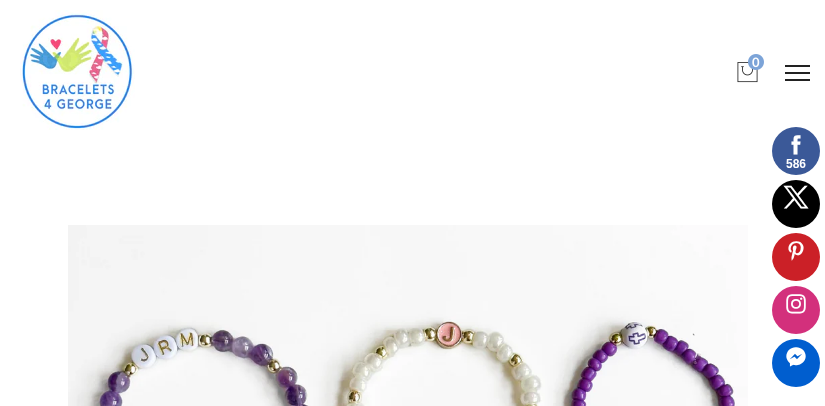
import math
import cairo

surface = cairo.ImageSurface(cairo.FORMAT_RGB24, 825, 406)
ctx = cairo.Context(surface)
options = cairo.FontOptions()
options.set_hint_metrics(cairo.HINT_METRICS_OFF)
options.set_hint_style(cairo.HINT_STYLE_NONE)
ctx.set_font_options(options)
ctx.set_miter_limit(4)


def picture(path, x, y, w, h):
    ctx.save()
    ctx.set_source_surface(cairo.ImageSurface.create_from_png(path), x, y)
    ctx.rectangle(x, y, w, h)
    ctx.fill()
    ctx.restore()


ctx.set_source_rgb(1, 1, 1)
ctx.paint()
picture("img1.png", 20, 10, 115, 120)
picture("img2.png", 737, 62, 21, 21)
ctx.set_source_rgb(0.486, 0.643, 0.847)
ctx.arc(756, 62, 8, 0, 2 * math.pi)
ctx.fill()
ctx.select_font_face("Lato", cairo.FONT_SLANT_NORMAL, cairo.FONT_WEIGHT_BOLD)
ctx.set_font_size(13)
ctx.set_source_rgb(1, 1, 1)
ctx.move_to(752, 67)
ctx.show_text("0")
ctx.set_source_rgb(0.133, 0.133, 0.133)
ctx.rectangle(785, 65, 25, 2)
ctx.fill()
ctx.rectangle(785, 72, 25, 2)
ctx.fill()
ctx.rectangle(785, 79, 25, 2)
ctx.fill()
picture("img3.png", 68, 225, 680, 181)
picture("img4.png", 772, 127, 48, 260)
surface.write_to_png("page.png")
